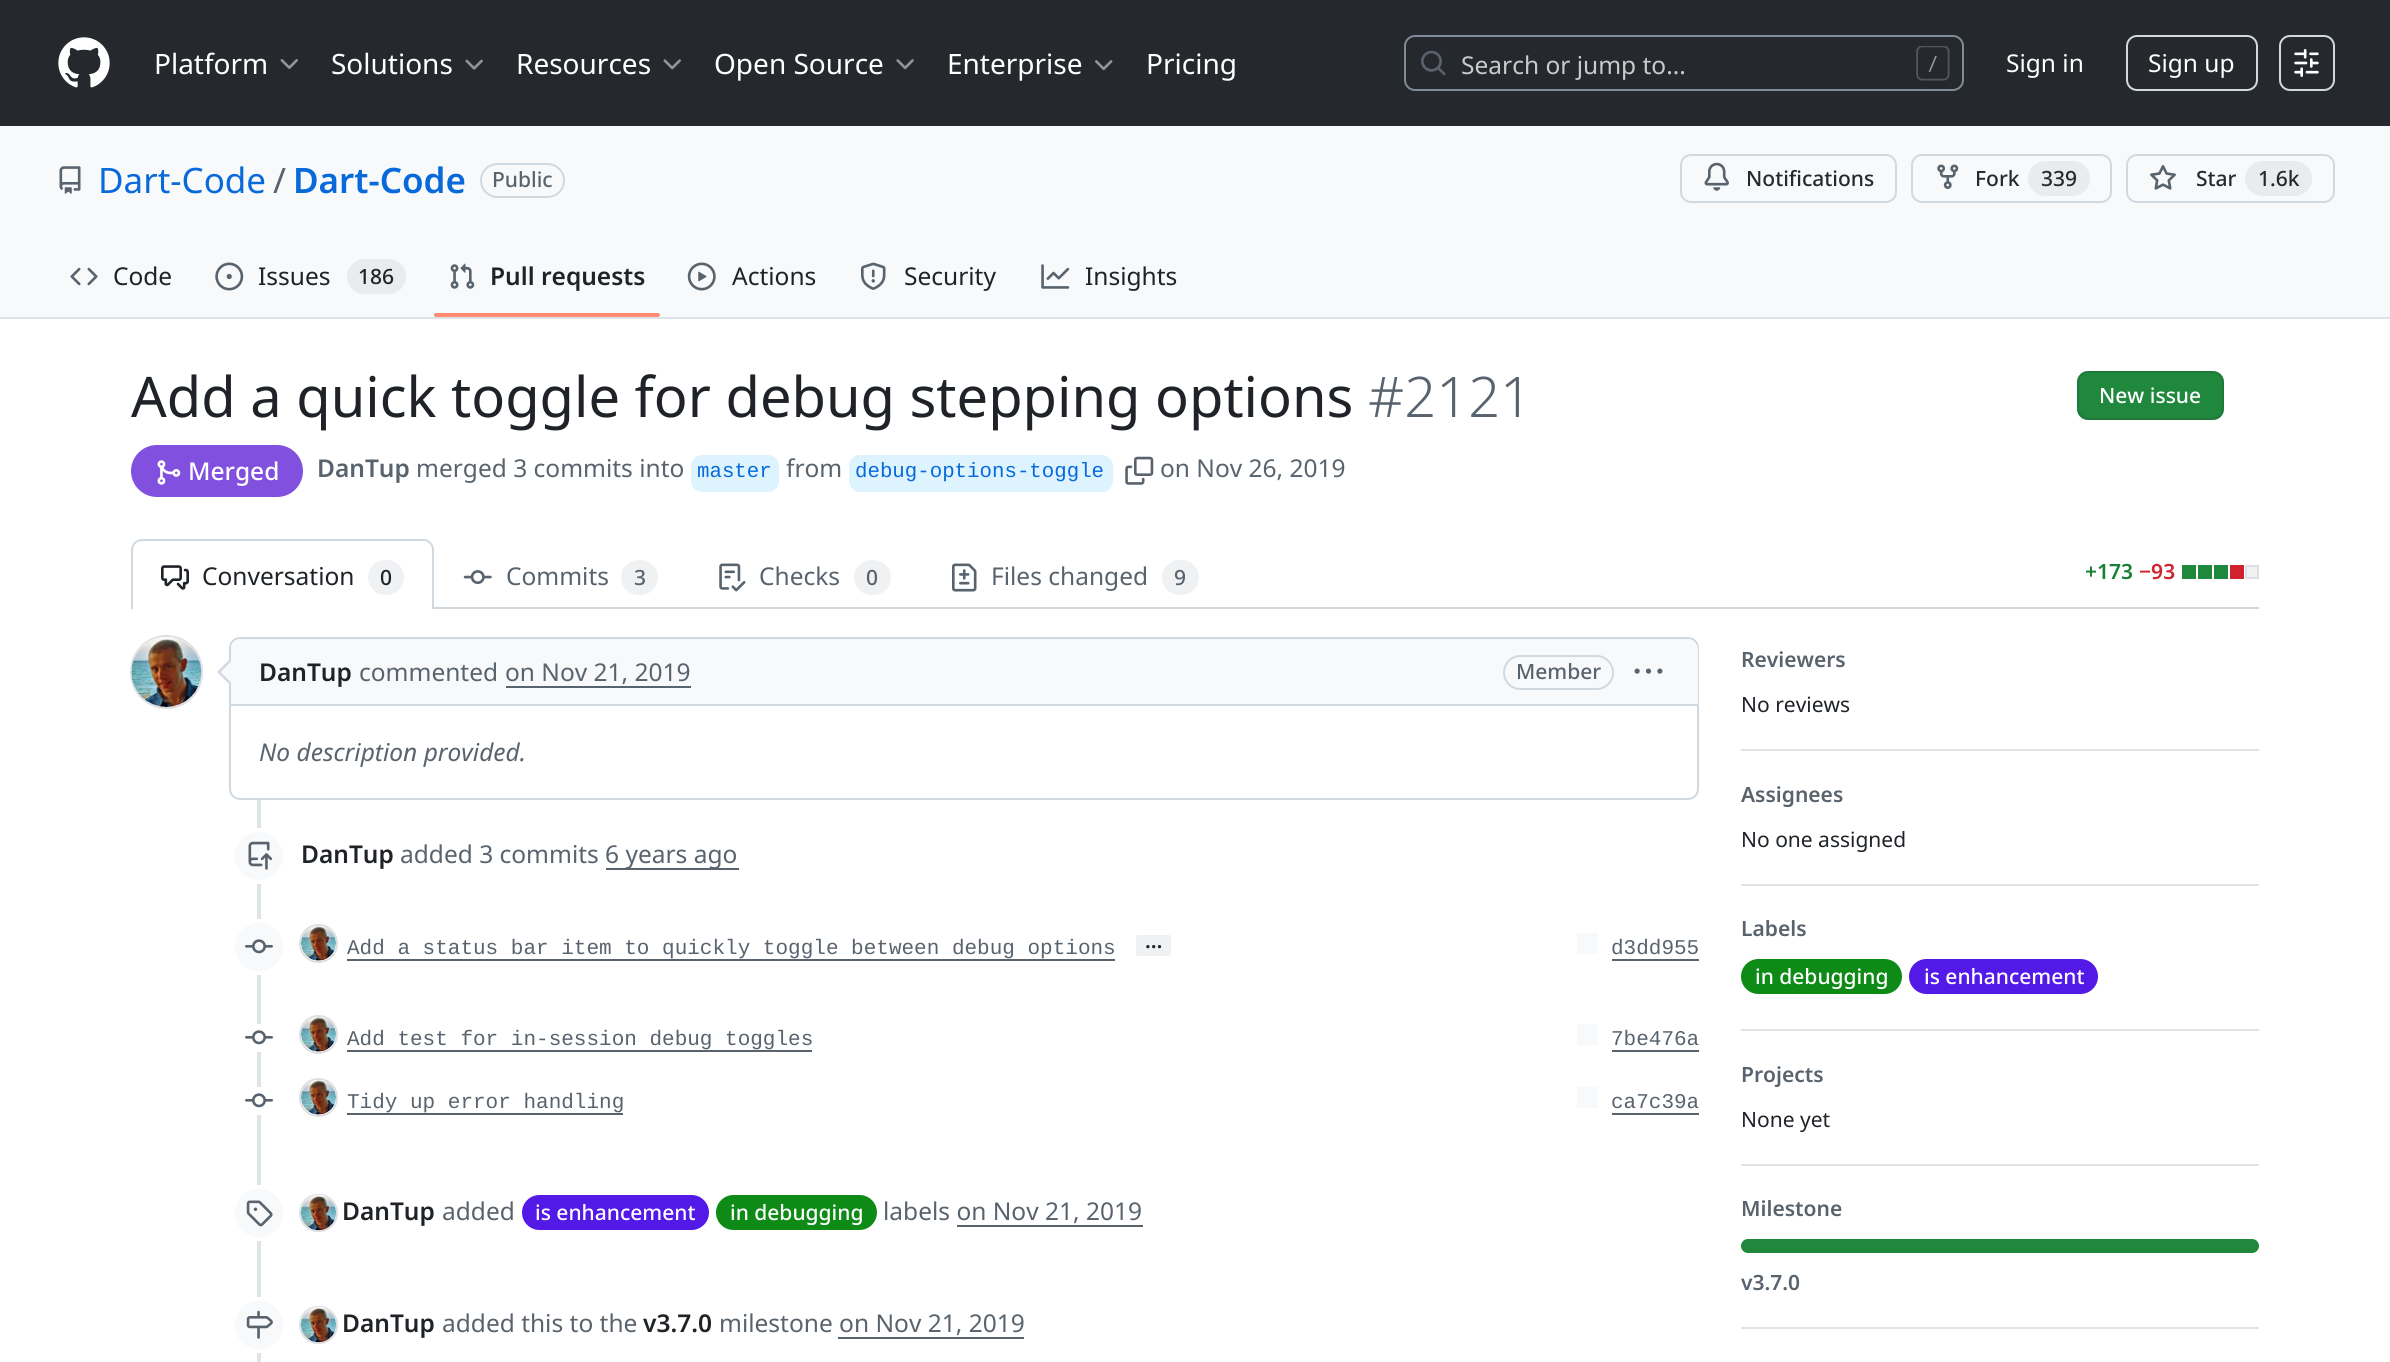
import math
import cairo

surface = cairo.ImageSurface(cairo.FORMAT_RGB24, 2390, 1362)
ctx = cairo.Context(surface)
options = cairo.FontOptions()
options.set_hint_metrics(cairo.HINT_METRICS_OFF)
options.set_hint_style(cairo.HINT_STYLE_NONE)
ctx.set_font_options(options)
ctx.set_miter_limit(4)


def round_rect(x, y, w, h, r):
    ctx.new_sub_path()
    for i, (u, v) in enumerate([(x + w - r, y + h - r), (x + r, y + h - r), (x + r, y + r), (x + w - r, y + r)]):
        ctx.arc(u, v, r, i * math.pi / 2, (i + 1) * math.pi / 2)
    ctx.close_path()


def picture(path, x, y, w, h):
    ctx.save()
    ctx.set_source_surface(cairo.ImageSurface.create_from_png(path), x, y)
    ctx.rectangle(x, y, w, h)
    ctx.fill()
    ctx.restore()


ctx.set_source_rgb(1, 1, 1)
ctx.paint()
ctx.set_source_rgb(0.145, 0.161, 0.18)
ctx.rectangle(0, 0, 2390, 126)
ctx.fill()
picture("img1.png", 58, 37, 52, 51)
ctx.select_font_face("Noto Sans")
ctx.set_font_size(28)
ctx.set_source_rgb(1, 1, 1)
ctx.move_to(154, 74)
ctx.show_text("Platform")
picture("img2.png", 280, 59, 18, 10)
ctx.move_to(331, 74)
ctx.show_text("Solutions")
picture("img3.png", 465, 59, 18, 11)
ctx.move_to(516, 74)
ctx.show_text("Resources")
picture("img4.png", 663, 59, 18, 11)
ctx.move_to(714, 74)
ctx.show_text("Open Source")
picture("img5.png", 896, 59, 18, 11)
ctx.move_to(947, 74)
ctx.show_text("Enterprise")
picture("img6.png", 1095, 60, 18, 11)
ctx.move_to(1146, 74)
ctx.show_text("Pricing")
round_rect(1405, 36, 558, 54, 10)
ctx.set_source_rgb(0.506, 0.545, 0.596)
ctx.stroke()
picture("img7.png", 1421, 50, 25, 26)
ctx.set_font_size(24.5)
ctx.set_source_rgb(0.788, 0.792, 0.796)
ctx.move_to(1461, 74)
ctx.show_text("Search or jump to...")
picture("img8.png", 1916, 46, 34, 35)
ctx.set_source_rgb(1, 1, 1)
ctx.move_to(2006, 72)
ctx.show_text("Sign in")
round_rect(2127, 36, 130, 54, 10)
ctx.set_source_rgb(0.82, 0.851, 0.878)
ctx.stroke()
ctx.set_source_rgb(1, 1, 1)
ctx.move_to(2148, 72)
ctx.show_text("Sign up")
round_rect(2280, 36, 54, 54, 10)
ctx.set_source_rgb(0.82, 0.851, 0.878)
ctx.stroke()
picture("img9.png", 2294, 49, 25, 28)
ctx.set_source_rgb(0.965, 0.973, 0.98)
ctx.rectangle(0, 126, 2390, 191)
ctx.fill()
picture("img10.png", 59, 166, 22, 28)
ctx.set_font_size(35)
ctx.set_source_rgb(0.035, 0.412, 0.855)
ctx.move_to(98, 193)
ctx.show_text("Dart-Code")
ctx.set_source_rgb(0.349, 0.388, 0.431)
ctx.move_to(273, 193)
ctx.show_text("/")
ctx.select_font_face("Noto Sans SemiBold")
ctx.set_source_rgb(0.035, 0.412, 0.855)
ctx.move_to(293, 193)
ctx.show_text("Dart-Code")
round_rect(481, 164, 83, 33, 16.5)
ctx.set_source_rgb(0.82, 0.851, 0.878)
ctx.stroke()
ctx.select_font_face("Noto Sans Medium")
ctx.set_font_size(21)
ctx.set_source_rgb(0.349, 0.388, 0.431)
ctx.move_to(492, 187)
ctx.show_text("Public")
round_rect(1681, 155, 215, 47, 10)
ctx.set_source_rgb(0.82, 0.851, 0.878)
ctx.stroke()
picture("img11.png", 1704, 162, 25, 29)
ctx.set_source_rgb(0.145, 0.161, 0.18)
ctx.move_to(1746, 186)
ctx.show_text("Notifications")
round_rect(1912, 155, 199, 47, 10)
ctx.set_source_rgb(0.82, 0.851, 0.878)
ctx.stroke()
picture("img12.png", 1937, 164, 22, 25)
ctx.set_source_rgb(0.145, 0.161, 0.18)
ctx.move_to(1975, 186)
ctx.show_text("Fork")
ctx.set_source_rgb(0.91, 0.922, 0.933)
round_rect(2028, 161, 62, 35, 17.5)
ctx.fill()
ctx.set_source_rgb(0.145, 0.161, 0.18)
ctx.move_to(2041, 186)
ctx.show_text("339")
round_rect(2127, 155, 207, 47, 10)
ctx.set_source_rgb(0.82, 0.851, 0.878)
ctx.stroke()
picture("img13.png", 2150, 165, 26, 25)
ctx.set_source_rgb(0.145, 0.161, 0.18)
ctx.move_to(2196, 186)
ctx.show_text("Star")
ctx.set_source_rgb(0.91, 0.922, 0.933)
round_rect(2245, 161, 67, 35, 17.5)
ctx.fill()
ctx.set_source_rgb(0.145, 0.161, 0.18)
ctx.move_to(2258, 186)
ctx.show_text("1.6k")
ctx.set_source_rgb(0.863, 0.886, 0.91)
ctx.rectangle(0, 317, 2390, 2)
ctx.fill()
picture("img14.png", 70, 267, 28, 19)
ctx.select_font_face("Noto Sans")
ctx.set_font_size(24.5)
ctx.set_source_rgb(0.122, 0.137, 0.157)
ctx.move_to(113, 285)
ctx.show_text("Code")
picture("img15.png", 215, 262, 29, 29)
ctx.move_to(258, 285)
ctx.show_text("Issues")
ctx.set_source_rgb(0.91, 0.922, 0.933)
round_rect(347, 259, 59, 35, 17.5)
ctx.fill()
ctx.select_font_face("Noto Sans Medium")
ctx.set_font_size(21)
ctx.set_source_rgb(0.122, 0.137, 0.157)
ctx.move_to(358, 284)
ctx.show_text("186")
picture("img16.png", 450, 263, 25, 26)
ctx.select_font_face("Noto Sans SemiBold")
ctx.set_font_size(24.5)
ctx.move_to(490, 285)
ctx.show_text("Pull requests")
ctx.set_source_rgb(0.992, 0.549, 0.451)
round_rect(434, 313, 226, 4, 2)
ctx.fill()
picture("img17.png", 687, 262, 29, 29)
ctx.select_font_face("Noto Sans")
ctx.set_source_rgb(0.122, 0.137, 0.157)
ctx.move_to(732, 285)
ctx.show_text("Actions")
picture("img18.png", 861, 262, 25, 28)
ctx.move_to(904, 285)
ctx.show_text("Security")
picture("img19.png", 1041, 264, 29, 25)
ctx.move_to(1085, 285)
ctx.show_text("Insights")
ctx.set_font_size(56)
ctx.move_to(131, 417)
ctx.show_text("Add a quick toggle for debug stepping options")
ctx.select_font_face("Noto Sans Light")
ctx.set_source_rgb(0.349, 0.388, 0.431)
ctx.move_to(1368, 417)
ctx.show_text("#2121")
ctx.set_source_rgb(0.122, 0.533, 0.239)
round_rect(2077, 371, 147, 49, 11)
ctx.fill()
round_rect(2078, 372, 145, 47, 10)
ctx.set_source_rgba(0.122, 0.137, 0.157, 0.15)
ctx.stroke()
ctx.select_font_face("Noto Sans Medium")
ctx.set_font_size(21)
ctx.set_source_rgb(1, 1, 1)
ctx.move_to(2099, 403)
ctx.show_text("New issue")
ctx.set_source_rgb(0.51, 0.314, 0.875)
round_rect(131, 445, 172, 52, 26)
ctx.fill()
picture("img20.png", 157, 460, 24, 25)
ctx.set_font_size(24.5)
ctx.set_source_rgb(1, 1, 1)
ctx.move_to(188, 480)
ctx.show_text("Merged")
ctx.select_font_face("Noto Sans SemiBold")
ctx.set_source_rgb(0.349, 0.388, 0.431)
ctx.move_to(317, 477)
ctx.show_text("DanTup")
ctx.select_font_face("Noto Sans")
ctx.move_to(416, 477)
ctx.show_text("merged 3 commits into")
ctx.set_source_rgb(0.867, 0.957, 1)
round_rect(691, 455, 88, 37, 11)
ctx.fill()
ctx.select_font_face("Liberation Mono")
ctx.set_font_size(20.75)
ctx.set_source_rgb(0.035, 0.412, 0.855)
ctx.move_to(697, 477)
ctx.show_text("master")
ctx.select_font_face("Noto Sans")
ctx.set_font_size(24.5)
ctx.set_source_rgb(0.349, 0.388, 0.431)
ctx.move_to(786, 477)
ctx.show_text("from")
ctx.set_source_rgb(0.867, 0.957, 1)
round_rect(849, 455, 264, 37, 11)
ctx.fill()
ctx.select_font_face("Liberation Mono")
ctx.set_font_size(20.75)
ctx.set_source_rgb(0.035, 0.412, 0.855)
ctx.move_to(855, 477)
ctx.show_text("debug-options-toggle")
picture("img21.png", 1125, 456, 29, 29)
ctx.select_font_face("Noto Sans")
ctx.set_font_size(24.5)
ctx.set_source_rgb(0.349, 0.388, 0.431)
ctx.move_to(1160, 477)
ctx.show_text("on Nov 26, 2019")
ctx.set_source_rgb(0.82, 0.851, 0.878)
ctx.rectangle(434, 607, 1825, 2)
ctx.fill()
ctx.set_fill_rule(cairo.FILL_RULE_EVEN_ODD)
ctx.new_path()
ctx.move_to(142, 539)
ctx.line_to(424, 539)
ctx.curve_to(429, 539, 434, 544, 434, 550)
ctx.line_to(434, 609)
ctx.line_to(131, 609)
ctx.line_to(131, 550)
ctx.curve_to(131, 544, 136, 539, 142, 539)
ctx.close_path()
ctx.move_to(142, 541)
ctx.line_to(424, 541)
ctx.curve_to(428, 541, 432, 545, 432, 550)
ctx.line_to(432, 609)
ctx.line_to(133, 609)
ctx.line_to(133, 550)
ctx.curve_to(133, 545, 137, 541, 142, 541)
ctx.close_path()
ctx.fill()
picture("img22.png", 161, 565, 28, 25)
ctx.set_source_rgb(0.122, 0.137, 0.157)
ctx.move_to(202, 585)
ctx.show_text("Conversation")
ctx.set_source_rgb(0.941, 0.945, 0.953)
round_rect(368, 560, 36, 35, 17.5)
ctx.fill()
ctx.select_font_face("Noto Sans Medium")
ctx.set_font_size(21)
ctx.set_source_rgb(0.122, 0.137, 0.157)
ctx.move_to(380, 585)
ctx.show_text("0")
picture("img23.png", 463, 570, 29, 15)
ctx.select_font_face("Noto Sans")
ctx.set_font_size(24.5)
ctx.set_source_rgb(0.349, 0.388, 0.431)
ctx.move_to(506, 585)
ctx.show_text("Commits")
ctx.set_source_rgb(0.941, 0.945, 0.953)
round_rect(621, 560, 37, 35, 17.5)
ctx.fill()
ctx.select_font_face("Noto Sans Medium")
ctx.set_font_size(21)
ctx.set_source_rgb(0.349, 0.388, 0.431)
ctx.move_to(634, 585)
ctx.show_text("3")
picture("img24.png", 719, 563, 27, 29)
ctx.select_font_face("Noto Sans")
ctx.set_font_size(24.5)
ctx.move_to(759, 585)
ctx.show_text("Checks")
ctx.set_source_rgb(0.941, 0.945, 0.953)
round_rect(854, 560, 37, 35, 17.5)
ctx.fill()
ctx.select_font_face("Noto Sans Medium")
ctx.set_font_size(21)
ctx.set_source_rgb(0.349, 0.388, 0.431)
ctx.move_to(866, 585)
ctx.show_text("0")
picture("img25.png", 952, 563, 25, 29)
ctx.select_font_face("Noto Sans")
ctx.set_font_size(24.5)
ctx.move_to(991, 585)
ctx.show_text("Files changed")
ctx.set_source_rgb(0.941, 0.945, 0.953)
round_rect(1162, 560, 37, 35, 17.5)
ctx.fill()
ctx.select_font_face("Noto Sans Medium")
ctx.set_font_size(21)
ctx.set_source_rgb(0.349, 0.388, 0.431)
ctx.move_to(1174, 585)
ctx.show_text("9")
ctx.select_font_face("Noto Sans SemiBold")
ctx.set_source_rgb(0.102, 0.498, 0.216)
ctx.move_to(2085, 579)
ctx.show_text("+173")
ctx.set_source_rgb(0.82, 0.141, 0.184)
ctx.move_to(2139, 579)
ctx.show_text("−93")
ctx.set_source_rgb(0.122, 0.533, 0.239)
ctx.rectangle(2182, 565, 14, 14)
ctx.fill()
ctx.rectangle(2198, 565, 14, 14)
ctx.fill()
ctx.rectangle(2214, 565, 14, 14)
ctx.fill()
ctx.set_source_rgb(0.812, 0.133, 0.18)
ctx.rectangle(2230, 565, 14, 14)
ctx.fill()
ctx.set_source_rgb(0.941, 0.945, 0.953)
ctx.rectangle(2246, 566, 12, 12)
ctx.fill_preserve()
ctx.set_source_rgb(0.855, 0.878, 0.902)
ctx.stroke()
round_rect(131, 636, 71, 72, 35.5)
ctx.set_source_rgb(0.867, 0.871, 0.875)
ctx.stroke()
ctx.set_source_rgb(1, 1, 1)
ctx.arc(166, 672, 35, 0, 2 * math.pi)
ctx.fill()
picture("img26.png", 131, 637, 71, 70)
round_rect(230, 638, 1468, 161, 10)
ctx.set_source_rgb(0.82, 0.851, 0.878)
ctx.stroke()
ctx.set_fill_rule(cairo.FILL_RULE_WINDING)
ctx.new_path()
ctx.move_to(217, 672)
ctx.line_to(231, 686)
ctx.line_to(231, 658)
ctx.close_path()
ctx.fill()
ctx.set_source_rgb(0.965, 0.973, 0.98)
ctx.new_path()
ctx.move_to(242, 639)
ctx.line_to(1687, 639)
ctx.curve_to(1693, 639, 1698, 644, 1698, 650)
ctx.line_to(1698, 705)
ctx.line_to(231, 705)
ctx.line_to(231, 650)
ctx.curve_to(231, 644, 236, 639, 242, 639)
ctx.close_path()
ctx.fill()
ctx.new_path()
ctx.move_to(221, 671.5)
ctx.line_to(234.5, 658)
ctx.line_to(234.5, 686)
ctx.line_to(221, 672.5)
ctx.close_path()
ctx.fill()
ctx.set_source_rgb(0.82, 0.851, 0.878)
ctx.rectangle(231, 704, 1467, 2)
ctx.fill()
ctx.set_font_size(24.5)
ctx.set_source_rgb(0.122, 0.137, 0.157)
ctx.move_to(259, 681)
ctx.show_text("DanTup")
ctx.select_font_face("Noto Sans")
ctx.set_source_rgb(0.349, 0.388, 0.431)
ctx.move_to(359, 681)
ctx.show_text("commented")
ctx.move_to(505, 681)
ctx.show_text("on Nov 21, 2019")
ctx.rectangle(506, 686, 185, 2)
ctx.fill()
round_rect(1504, 656, 109, 33, 16.5)
ctx.set_source_rgb(0.82, 0.851, 0.878)
ctx.stroke()
ctx.select_font_face("Noto Sans Medium")
ctx.set_font_size(21)
ctx.set_source_rgb(0.349, 0.388, 0.431)
ctx.move_to(1516, 679)
ctx.show_text("Member")
picture("img27.png", 1634, 668, 29, 6)
ctx.select_font_face("Noto Sans", cairo.FONT_SLANT_ITALIC)
ctx.set_font_size(24.5)
ctx.move_to(259, 761)
ctx.show_text("No description provided.")
ctx.set_source_rgb(0.875, 0.894, 0.914)
ctx.rectangle(257, 800, 4, 562)
ctx.fill()
ctx.set_source_rgb(0.965, 0.973, 0.98)
ctx.arc(259, 856, 26, 0, 2 * math.pi)
ctx.fill_preserve()
ctx.set_source_rgb(1, 1, 1)
ctx.set_line_width(4)
ctx.stroke()
picture("img28.png", 248, 841, 25, 29)
ctx.select_font_face("Noto Sans SemiBold")
ctx.set_source_rgb(0.122, 0.137, 0.157)
ctx.move_to(301, 863)
ctx.show_text("DanTup")
ctx.select_font_face("Noto Sans")
ctx.set_source_rgb(0.349, 0.388, 0.431)
ctx.move_to(400, 863)
ctx.show_text("added 3 commits")
ctx.rectangle(606, 868, 133, 2)
ctx.fill()
ctx.move_to(605, 863)
ctx.show_text("6 years ago")
ctx.set_source_rgb(0.965, 0.973, 0.98)
ctx.new_path()
ctx.arc(259, 947, 26, 0, 2 * math.pi)
ctx.fill_preserve()
ctx.set_source_rgb(1, 1, 1)
ctx.stroke()
picture("img29.png", 245, 939, 28, 15)
ctx.arc(318.5, 943.5, 18.5, 0, 2 * math.pi)
ctx.set_source_rgb(0.867, 0.871, 0.875)
ctx.set_line_width(2)
ctx.stroke()
ctx.set_source_rgb(1, 1, 1)
ctx.arc(318.5, 943.5, 17.5, 0, 2 * math.pi)
ctx.fill()
picture("img30.png", 301, 926, 35, 35)
ctx.select_font_face("Liberation Mono")
ctx.set_font_size(21)
ctx.set_source_rgb(0.349, 0.388, 0.431)
ctx.move_to(347, 954)
ctx.show_text("Add a status bar item to quickly toggle between debug options")
ctx.rectangle(347, 959, 768, 2)
ctx.fill()
ctx.set_source_rgb(0.941, 0.945, 0.953)
round_rect(1136, 935, 35, 21, 2)
ctx.fill()
ctx.select_font_face("Noto Sans SemiBold")
ctx.set_source_rgb(0.122, 0.137, 0.157)
ctx.move_to(1145, 948)
ctx.show_text("…")
ctx.set_source_rgb(0.965, 0.973, 0.98)
ctx.rectangle(1577, 933, 21, 21)
ctx.fill()
ctx.select_font_face("Liberation Mono")
ctx.set_source_rgb(0.349, 0.388, 0.431)
ctx.move_to(1611, 954)
ctx.show_text("d3dd955")
ctx.rectangle(1612, 959, 87, 2)
ctx.fill()
ctx.set_source_rgb(1, 1, 1)
ctx.new_path()
ctx.move_to(259, 1024)
ctx.curve_to(274.5, 1024, 287, 1030.5, 287, 1038)
ctx.curve_to(287, 1045.5, 274.5, 1052, 259, 1052)
ctx.curve_to(243.5, 1052, 231, 1045.5, 231, 1038)
ctx.curve_to(231, 1030.5, 243.5, 1024, 259, 1024)
ctx.close_path()
ctx.fill()
picture("img31.png", 245, 1030, 28, 15)
ctx.arc(318.5, 1034.5, 18.5, 0, 2 * math.pi)
ctx.set_source_rgb(0.867, 0.871, 0.875)
ctx.stroke()
ctx.set_source_rgb(1, 1, 1)
ctx.arc(318.5, 1034.5, 17.5, 0, 2 * math.pi)
ctx.fill()
picture("img30.png", 301, 1017, 35, 35)
ctx.set_source_rgb(0.349, 0.388, 0.431)
ctx.move_to(347, 1045)
ctx.show_text("Add test for in-session debug toggles")
ctx.rectangle(347, 1050, 465, 2)
ctx.fill()
ctx.set_source_rgb(0.965, 0.973, 0.98)
ctx.rectangle(1577, 1024, 21, 21)
ctx.fill()
ctx.set_source_rgb(0.349, 0.388, 0.431)
ctx.move_to(1611, 1045)
ctx.show_text("7be476a")
ctx.rectangle(1612, 1050, 87, 2)
ctx.fill()
ctx.set_source_rgb(1, 1, 1)
ctx.new_path()
ctx.move_to(259, 1087)
ctx.curve_to(274.5, 1087, 287, 1093.5, 287, 1101)
ctx.curve_to(287, 1108.5, 274.5, 1115, 259, 1115)
ctx.curve_to(243.5, 1115, 231, 1108.5, 231, 1101)
ctx.curve_to(231, 1093.5, 243.5, 1087, 259, 1087)
ctx.close_path()
ctx.fill()
picture("img31.png", 245, 1093, 28, 15)
ctx.arc(318.5, 1097.5, 18.5, 0, 2 * math.pi)
ctx.set_source_rgb(0.867, 0.871, 0.875)
ctx.stroke()
ctx.set_source_rgb(1, 1, 1)
ctx.arc(318.5, 1097.5, 17.5, 0, 2 * math.pi)
ctx.fill()
picture("img30.png", 301, 1080, 35, 35)
ctx.set_source_rgb(0.349, 0.388, 0.431)
ctx.move_to(347, 1108)
ctx.show_text("Tidy up error handling")
ctx.rectangle(347, 1113, 276, 2)
ctx.fill()
ctx.set_source_rgb(0.965, 0.973, 0.98)
ctx.rectangle(1577, 1087, 21, 21)
ctx.fill()
ctx.set_source_rgb(0.349, 0.388, 0.431)
ctx.move_to(1611, 1108)
ctx.show_text("ca7c39a")
ctx.rectangle(1612, 1113, 87, 2)
ctx.fill()
ctx.set_source_rgb(0.965, 0.973, 0.98)
ctx.arc(259, 1213, 26, 0, 2 * math.pi)
ctx.fill_preserve()
ctx.set_source_rgb(1, 1, 1)
ctx.set_line_width(4)
ctx.stroke()
picture("img32.png", 246, 1200, 27, 27)
round_rect(300, 1195, 37, 36, 18)
ctx.set_source_rgb(0.867, 0.871, 0.875)
ctx.set_line_width(2)
ctx.stroke()
ctx.set_source_rgb(1, 1, 1)
ctx.arc(318.5, 1212.5, 17.5, 0, 2 * math.pi)
ctx.fill()
picture("img33.png", 301, 1195, 35, 36)
ctx.select_font_face("Noto Sans SemiBold")
ctx.set_font_size(24.5)
ctx.set_source_rgb(0.122, 0.137, 0.157)
ctx.move_to(342, 1220)
ctx.show_text("DanTup")
ctx.select_font_face("Noto Sans")
ctx.set_source_rgb(0.349, 0.388, 0.431)
ctx.move_to(442, 1220)
ctx.show_text("added")
ctx.set_source_rgb(0.325, 0.098, 0.906)
round_rect(522, 1195, 187, 35, 17.5)
ctx.fill()
ctx.select_font_face("Noto Sans Medium")
ctx.set_font_size(21)
ctx.set_source_rgb(1, 1, 1)
ctx.move_to(535, 1220)
ctx.show_text("is enhancement")
ctx.set_source_rgb(0.055, 0.541, 0.086)
round_rect(716, 1195, 161, 35, 17.5)
ctx.fill()
ctx.set_source_rgb(1, 1, 1)
ctx.move_to(730, 1220)
ctx.show_text("in debugging")
ctx.select_font_face("Noto Sans")
ctx.set_font_size(24.5)
ctx.set_source_rgb(0.349, 0.388, 0.431)
ctx.move_to(883, 1220)
ctx.show_text("labels on Nov 21, 2019")
ctx.rectangle(957, 1225, 186, 2)
ctx.fill()
ctx.set_source_rgb(0.965, 0.973, 0.98)
ctx.arc(259, 1325, 26, 0, 2 * math.pi)
ctx.fill_preserve()
ctx.set_source_rgb(1, 1, 1)
ctx.set_line_width(4)
ctx.stroke()
picture("img34.png", 246, 1310, 27, 29)
round_rect(300, 1307, 37, 36, 18)
ctx.set_source_rgb(0.867, 0.871, 0.875)
ctx.set_line_width(2)
ctx.stroke()
ctx.set_source_rgb(1, 1, 1)
ctx.arc(318.5, 1324.5, 17.5, 0, 2 * math.pi)
ctx.fill()
picture("img33.png", 301, 1307, 35, 36)
ctx.select_font_face("Noto Sans SemiBold")
ctx.set_source_rgb(0.122, 0.137, 0.157)
ctx.move_to(342, 1332)
ctx.show_text("DanTup")
ctx.select_font_face("Noto Sans")
ctx.set_source_rgb(0.349, 0.388, 0.431)
ctx.move_to(442, 1332)
ctx.show_text("added this to the")
ctx.select_font_face("Noto Sans SemiBold")
ctx.set_source_rgb(0.122, 0.137, 0.157)
ctx.move_to(643, 1332)
ctx.show_text("v3.7.0")
ctx.select_font_face("Noto Sans")
ctx.set_source_rgb(0.349, 0.388, 0.431)
ctx.move_to(719, 1332)
ctx.show_text("milestone on Nov 21, 2019")
ctx.rectangle(838, 1337, 186, 2)
ctx.fill()
ctx.select_font_face("Noto Sans SemiBold")
ctx.set_font_size(21)
ctx.move_to(1741, 667)
ctx.show_text("Reviewers")
ctx.select_font_face("Noto Sans")
ctx.set_source_rgb(0.122, 0.137, 0.157)
ctx.move_to(1741, 712)
ctx.show_text("No reviews")
ctx.set_source_rgb(0.875, 0.894, 0.914)
ctx.rectangle(1741, 749, 518, 2)
ctx.fill()
ctx.select_font_face("Noto Sans SemiBold")
ctx.set_source_rgb(0.349, 0.388, 0.431)
ctx.move_to(1741, 802)
ctx.show_text("Assignees")
ctx.select_font_face("Noto Sans")
ctx.set_source_rgb(0.122, 0.137, 0.157)
ctx.move_to(1741, 847)
ctx.show_text("No one assigned")
ctx.set_source_rgb(0.875, 0.894, 0.914)
ctx.rectangle(1741, 884, 518, 2)
ctx.fill()
ctx.select_font_face("Noto Sans SemiBold")
ctx.set_source_rgb(0.349, 0.388, 0.431)
ctx.move_to(1741, 936)
ctx.show_text("Labels")
ctx.set_source_rgb(0.055, 0.541, 0.086)
round_rect(1741, 959, 161, 35, 17.5)
ctx.fill()
ctx.select_font_face("Noto Sans Medium")
ctx.set_source_rgb(1, 1, 1)
ctx.move_to(1755, 984)
ctx.show_text("in debugging")
ctx.set_source_rgb(0.325, 0.098, 0.906)
round_rect(1909, 959, 189, 35, 17.5)
ctx.fill()
ctx.set_source_rgb(1, 1, 1)
ctx.move_to(1924, 984)
ctx.show_text("is enhancement")
ctx.set_source_rgb(0.875, 0.894, 0.914)
ctx.rectangle(1741, 1029, 518, 2)
ctx.fill()
ctx.select_font_face("Noto Sans SemiBold")
ctx.set_source_rgb(0.349, 0.388, 0.431)
ctx.move_to(1741, 1082)
ctx.show_text("Projects")
ctx.select_font_face("Noto Sans")
ctx.set_source_rgb(0.122, 0.137, 0.157)
ctx.move_to(1741, 1127)
ctx.show_text("None yet")
ctx.set_source_rgb(0.875, 0.894, 0.914)
ctx.rectangle(1741, 1164, 518, 2)
ctx.fill()
ctx.select_font_face("Noto Sans SemiBold")
ctx.set_source_rgb(0.349, 0.388, 0.431)
ctx.move_to(1741, 1216)
ctx.show_text("Milestone")
ctx.set_source_rgb(0.122, 0.533, 0.239)
round_rect(1741, 1239, 518, 14, 7)
ctx.fill()
ctx.set_source_rgb(0.349, 0.388, 0.431)
ctx.move_to(1741, 1290)
ctx.show_text("v3.7.0")
ctx.set_source_rgb(0.875, 0.894, 0.914)
ctx.rectangle(1741, 1327, 518, 2)
ctx.fill()
surface.write_to_png("page.png")
